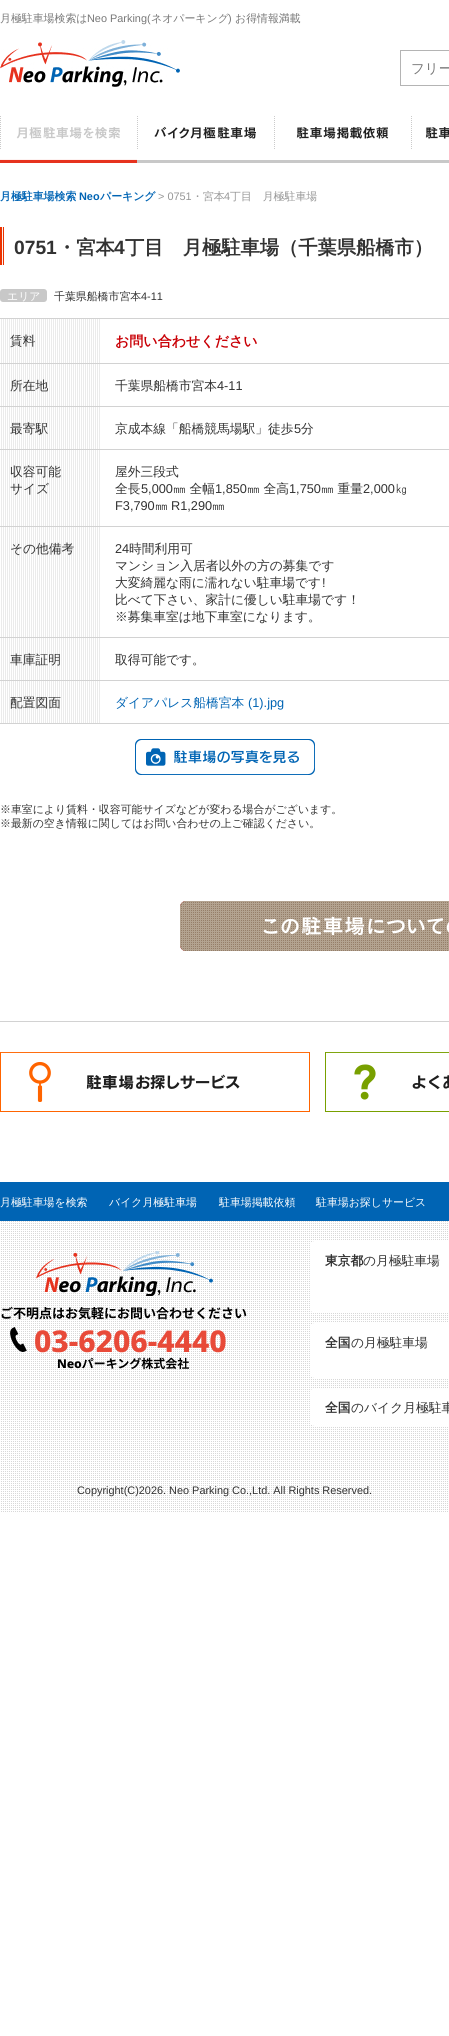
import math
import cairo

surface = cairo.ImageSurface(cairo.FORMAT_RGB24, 449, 2036)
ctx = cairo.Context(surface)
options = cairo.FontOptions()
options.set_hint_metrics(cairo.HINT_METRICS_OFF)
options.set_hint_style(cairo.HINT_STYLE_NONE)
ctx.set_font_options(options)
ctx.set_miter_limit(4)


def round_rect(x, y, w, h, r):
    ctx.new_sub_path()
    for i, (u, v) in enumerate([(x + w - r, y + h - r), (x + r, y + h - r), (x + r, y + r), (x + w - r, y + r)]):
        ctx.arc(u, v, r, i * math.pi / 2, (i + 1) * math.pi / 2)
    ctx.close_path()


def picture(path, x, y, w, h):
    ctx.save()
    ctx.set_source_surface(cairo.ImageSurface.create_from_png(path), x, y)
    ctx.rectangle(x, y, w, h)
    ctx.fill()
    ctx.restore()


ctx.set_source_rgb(1, 1, 1)
ctx.paint()
ctx.select_font_face("WenQuanYi Zen Hei Medium")
ctx.set_font_size(10.9)
ctx.set_source_rgb(0.471, 0.471, 0.471)
ctx.move_to(0, 22)
ctx.show_text("月極駐車場検索は")
ctx.select_font_face("Liberation Sans")
ctx.move_to(87, 22)
ctx.show_text("Neo Parking(")
ctx.select_font_face("WenQuanYi Zen Hei Medium")
ctx.move_to(151, 22)
ctx.show_text("ネオパーキング")
ctx.select_font_face("Liberation Sans")
ctx.move_to(228, 22)
ctx.show_text(")")
ctx.select_font_face("WenQuanYi Zen Hei Medium")
ctx.move_to(235, 22)
ctx.show_text("お得情報満載")
picture("img1.png", 0, 40, 180, 47)
ctx.rectangle(400.5, 50.5, 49, 35)
ctx.set_source_rgb(0.706, 0.706, 0.706)
ctx.set_line_width(1)
ctx.stroke()
ctx.set_font_size(13.5)
ctx.set_source_rgb(0.471, 0.471, 0.471)
ctx.move_to(411, 73)
ctx.show_text("フリー")
ctx.set_source_rgb(0.784, 0.784, 0.784)
ctx.rectangle(137, 160, 312, 3)
ctx.fill()
picture("img2.png", 0, 116, 137, 47)
picture("img3.png", 137, 116, 119, 33)
picture("img4.png", 274, 116, 115, 33)
picture("img5.png", 411, 116, 38, 33)
ctx.select_font_face("WenQuanYi Zen Hei", cairo.FONT_SLANT_NORMAL, cairo.FONT_WEIGHT_BOLD)
ctx.set_font_size(10.9)
ctx.set_source_rgb(0, 0.392, 0.706)
ctx.move_to(0, 200)
ctx.show_text("月極駐車場検索")
ctx.select_font_face("Liberation Sans", cairo.FONT_SLANT_NORMAL, cairo.FONT_WEIGHT_BOLD)
ctx.move_to(79, 200)
ctx.show_text("Neo")
ctx.select_font_face("WenQuanYi Zen Hei", cairo.FONT_SLANT_NORMAL, cairo.FONT_WEIGHT_BOLD)
ctx.move_to(100, 200)
ctx.show_text("パーキング")
ctx.select_font_face("Liberation Sans")
ctx.set_source_rgb(0.588, 0.588, 0.588)
ctx.move_to(158, 200)
ctx.show_text("> 0751")
ctx.select_font_face("WenQuanYi Zen Hei Medium")
ctx.move_to(192, 200)
ctx.show_text("・宮本")
ctx.select_font_face("Liberation Sans")
ctx.move_to(224, 200)
ctx.show_text("4")
ctx.select_font_face("WenQuanYi Zen Hei Medium")
ctx.move_to(230, 200)
ctx.show_text("丁目　月極駐車場")
picture("img6.png", 0, 227, 4, 38)
ctx.select_font_face("Liberation Sans", cairo.FONT_SLANT_NORMAL, cairo.FONT_WEIGHT_BOLD)
ctx.set_font_size(19.25)
ctx.set_source_rgb(0.196, 0.196, 0.196)
ctx.move_to(14, 254)
ctx.show_text("0751")
ctx.select_font_face("WenQuanYi Zen Hei", cairo.FONT_SLANT_NORMAL, cairo.FONT_WEIGHT_BOLD)
ctx.move_to(57, 254)
ctx.show_text("・宮本")
ctx.select_font_face("Liberation Sans", cairo.FONT_SLANT_NORMAL, cairo.FONT_WEIGHT_BOLD)
ctx.move_to(114, 254)
ctx.show_text("4")
ctx.select_font_face("WenQuanYi Zen Hei", cairo.FONT_SLANT_NORMAL, cairo.FONT_WEIGHT_BOLD)
ctx.move_to(125, 254)
ctx.show_text("丁目　月極駐車場（千葉県船橋市）")
ctx.set_source_rgb(0.784, 0.784, 0.784)
round_rect(0, 289, 47, 13, 3)
ctx.fill()
ctx.select_font_face("WenQuanYi Zen Hei Medium")
ctx.set_font_size(10.9)
ctx.set_source_rgb(1, 1, 1)
ctx.move_to(7, 300)
ctx.show_text("エリア")
ctx.set_source_rgb(0.196, 0.196, 0.196)
ctx.move_to(54, 300)
ctx.show_text("千葉県船橋市宮本")
ctx.select_font_face("Liberation Sans")
ctx.move_to(141, 300)
ctx.show_text("4-11")
ctx.set_source_rgb(0.824, 0.824, 0.824)
ctx.rectangle(0, 318, 449, 1)
ctx.fill()
picture("img7.png", 1, 319, 99, 44)
ctx.select_font_face("WenQuanYi Zen Hei Medium")
ctx.set_font_size(12.75)
ctx.set_source_rgb(0.196, 0.196, 0.196)
ctx.move_to(10, 345)
ctx.show_text("賃料")
ctx.set_source_rgb(0.824, 0.824, 0.824)
ctx.rectangle(0, 363, 449, 1)
ctx.fill()
ctx.select_font_face("WenQuanYi Zen Hei", cairo.FONT_SLANT_NORMAL, cairo.FONT_WEIGHT_BOLD)
ctx.set_font_size(14)
ctx.set_source_rgb(0.788, 0, 0.027)
ctx.move_to(115, 346)
ctx.show_text("お問い合わせください")
picture("img8.png", 1, 364, 99, 42)
ctx.select_font_face("WenQuanYi Zen Hei Medium")
ctx.set_font_size(12.75)
ctx.set_source_rgb(0.196, 0.196, 0.196)
ctx.move_to(10, 390)
ctx.show_text("所在地")
ctx.set_source_rgb(0.824, 0.824, 0.824)
ctx.rectangle(0, 406, 449, 1)
ctx.fill()
ctx.set_source_rgb(0.196, 0.196, 0.196)
ctx.move_to(115, 390)
ctx.show_text("千葉県船橋市宮本")
ctx.select_font_face("Liberation Sans")
ctx.move_to(217, 390)
ctx.show_text("4-11")
picture("img8.png", 1, 407, 99, 42)
ctx.select_font_face("WenQuanYi Zen Hei Medium")
ctx.move_to(10, 433)
ctx.show_text("最寄駅")
ctx.set_source_rgb(0.824, 0.824, 0.824)
ctx.rectangle(0, 449, 449, 1)
ctx.fill()
ctx.set_source_rgb(0.196, 0.196, 0.196)
ctx.move_to(115, 433)
ctx.show_text("京成本線「船橋競馬場駅」徒歩")
ctx.select_font_face("Liberation Sans")
ctx.move_to(294, 433)
ctx.show_text("5")
ctx.select_font_face("WenQuanYi Zen Hei Medium")
ctx.move_to(301, 433)
ctx.show_text("分")
picture("img9.png", 1, 450, 99, 76)
ctx.move_to(10, 476)
ctx.show_text("収容可能")
ctx.move_to(10, 493)
ctx.show_text("サイズ")
ctx.set_source_rgb(0.824, 0.824, 0.824)
ctx.rectangle(0, 526, 449, 1)
ctx.fill()
ctx.set_source_rgb(0.196, 0.196, 0.196)
ctx.move_to(115, 476)
ctx.show_text("屋外三段式")
ctx.move_to(115, 493)
ctx.show_text("全長")
ctx.select_font_face("Liberation Sans")
ctx.move_to(141, 493)
ctx.show_text("5,000")
ctx.select_font_face("WenQuanYi Zen Hei Medium")
ctx.move_to(173, 493)
ctx.show_text("㎜ 全幅")
ctx.select_font_face("Liberation Sans")
ctx.move_to(215, 493)
ctx.show_text("1,850")
ctx.select_font_face("WenQuanYi Zen Hei Medium")
ctx.move_to(247, 493)
ctx.show_text("㎜ 全高")
ctx.select_font_face("Liberation Sans")
ctx.move_to(289, 493)
ctx.show_text("1,750")
ctx.select_font_face("WenQuanYi Zen Hei Medium")
ctx.move_to(321, 493)
ctx.show_text("㎜ 重量")
ctx.select_font_face("Liberation Sans")
ctx.move_to(363, 493)
ctx.show_text("2,000")
ctx.select_font_face("WenQuanYi Zen Hei Medium")
ctx.move_to(395, 493)
ctx.show_text("㎏")
ctx.select_font_face("Liberation Sans")
ctx.move_to(115, 510)
ctx.show_text("F3,790")
ctx.select_font_face("WenQuanYi Zen Hei Medium")
ctx.move_to(155, 510)
ctx.show_text("㎜")
ctx.select_font_face("Liberation Sans")
ctx.move_to(171, 510)
ctx.show_text("R1,290")
ctx.select_font_face("WenQuanYi Zen Hei Medium")
ctx.move_to(212, 510)
ctx.show_text("㎜")
picture("img10.png", 1, 527, 99, 110)
ctx.move_to(10, 553)
ctx.show_text("その他備考")
ctx.set_source_rgb(0.824, 0.824, 0.824)
ctx.rectangle(0, 637, 449, 1)
ctx.fill()
ctx.select_font_face("Liberation Sans")
ctx.set_source_rgb(0.196, 0.196, 0.196)
ctx.move_to(115, 553)
ctx.show_text("24")
ctx.select_font_face("WenQuanYi Zen Hei Medium")
ctx.move_to(129, 553)
ctx.show_text("時間利用可")
ctx.move_to(115, 570)
ctx.show_text("マンション入居者以外の方の募集です")
ctx.move_to(115, 587)
ctx.show_text("大変綺麗な雨に濡れない駐車場です")
ctx.select_font_face("Liberation Sans")
ctx.move_to(322, 587)
ctx.show_text("!")
ctx.select_font_face("WenQuanYi Zen Hei Medium")
ctx.move_to(115, 604)
ctx.show_text("比べて下さい、家計に優しい駐車場です！")
ctx.move_to(115, 621)
ctx.show_text("※募集車室は地下車室になります。")
picture("img8.png", 1, 638, 99, 42)
ctx.move_to(10, 664)
ctx.show_text("車庫証明")
ctx.set_source_rgb(0.824, 0.824, 0.824)
ctx.rectangle(0, 680, 449, 1)
ctx.fill()
ctx.set_source_rgb(0.196, 0.196, 0.196)
ctx.move_to(115, 664)
ctx.show_text("取得可能です。")
picture("img8.png", 1, 681, 99, 42)
ctx.move_to(10, 707)
ctx.show_text("配置図面")
ctx.set_source_rgb(0.824, 0.824, 0.824)
ctx.rectangle(0, 723, 449, 1)
ctx.fill()
ctx.set_source_rgb(0, 0.392, 0.706)
ctx.move_to(115, 707)
ctx.show_text("ダイアパレス船橋宮本")
ctx.select_font_face("Liberation Sans")
ctx.move_to(248, 707)
ctx.show_text("(1).jpg")
picture("img11.png", 135, 739, 180, 36)
ctx.select_font_face("WenQuanYi Zen Hei Medium")
ctx.set_font_size(10.9)
ctx.set_source_rgb(0.196, 0.196, 0.196)
ctx.move_to(0, 813)
ctx.show_text("※車室により賃料・収容可能サイズなどが変わる場合がございます。")
ctx.move_to(0, 827)
ctx.show_text("※最新の空き情報に関してはお問い合わせの上ご確認ください。")
ctx.set_source_rgb(0.824, 0.824, 0.824)
ctx.rectangle(0, 1021, 449, 1)
ctx.fill()
picture("img12.png", 180, 901, 269, 50)
picture("img13.png", 0, 1052, 310, 60)
picture("img14.png", 325, 1052, 124, 60)
picture("img15.png", 1, 1221, 447, 291)
ctx.set_source_rgb(0, 0.392, 0.706)
ctx.rectangle(0, 1182, 449, 39)
ctx.fill()
ctx.set_source_rgb(1, 1, 1)
ctx.move_to(0, 1206)
ctx.show_text("月極駐車場を検索")
ctx.move_to(109, 1206)
ctx.show_text("バイク月極駐車場")
ctx.move_to(219, 1206)
ctx.show_text("駐車場掲載依頼")
ctx.move_to(316, 1206)
ctx.show_text("駐車場お探しサービス")
picture("img16.png", 1, 1251, 246, 119)
round_rect(310, 1241, 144, 72, 5)
ctx.fill()
ctx.select_font_face("WenQuanYi Zen Hei", cairo.FONT_SLANT_NORMAL, cairo.FONT_WEIGHT_BOLD)
ctx.set_font_size(12.75)
ctx.set_source_rgb(0.196, 0.196, 0.196)
ctx.move_to(325, 1265)
ctx.show_text("東京都")
ctx.select_font_face("WenQuanYi Zen Hei Medium")
ctx.move_to(363, 1265)
ctx.show_text("の月極駐車場")
ctx.set_source_rgb(1, 1, 1)
round_rect(310, 1323, 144, 55, 5)
ctx.fill()
ctx.select_font_face("WenQuanYi Zen Hei", cairo.FONT_SLANT_NORMAL, cairo.FONT_WEIGHT_BOLD)
ctx.set_source_rgb(0.196, 0.196, 0.196)
ctx.move_to(325, 1347)
ctx.show_text("全国")
ctx.select_font_face("WenQuanYi Zen Hei Medium")
ctx.move_to(351, 1347)
ctx.show_text("の月極駐車場")
ctx.set_source_rgb(1, 1, 1)
round_rect(310, 1388, 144, 38, 5)
ctx.fill()
ctx.select_font_face("WenQuanYi Zen Hei", cairo.FONT_SLANT_NORMAL, cairo.FONT_WEIGHT_BOLD)
ctx.set_source_rgb(0.196, 0.196, 0.196)
ctx.move_to(325, 1412)
ctx.show_text("全国")
ctx.select_font_face("WenQuanYi Zen Hei Medium")
ctx.move_to(351, 1412)
ctx.show_text("のバイク月極駐車")
ctx.select_font_face("Liberation Sans")
ctx.set_font_size(10.9)
ctx.move_to(77, 1494)
ctx.show_text("Copyright(C)2026. Neo Parking Co.,Ltd. All Rights Reserved.")
surface.write_to_png("page.png")
